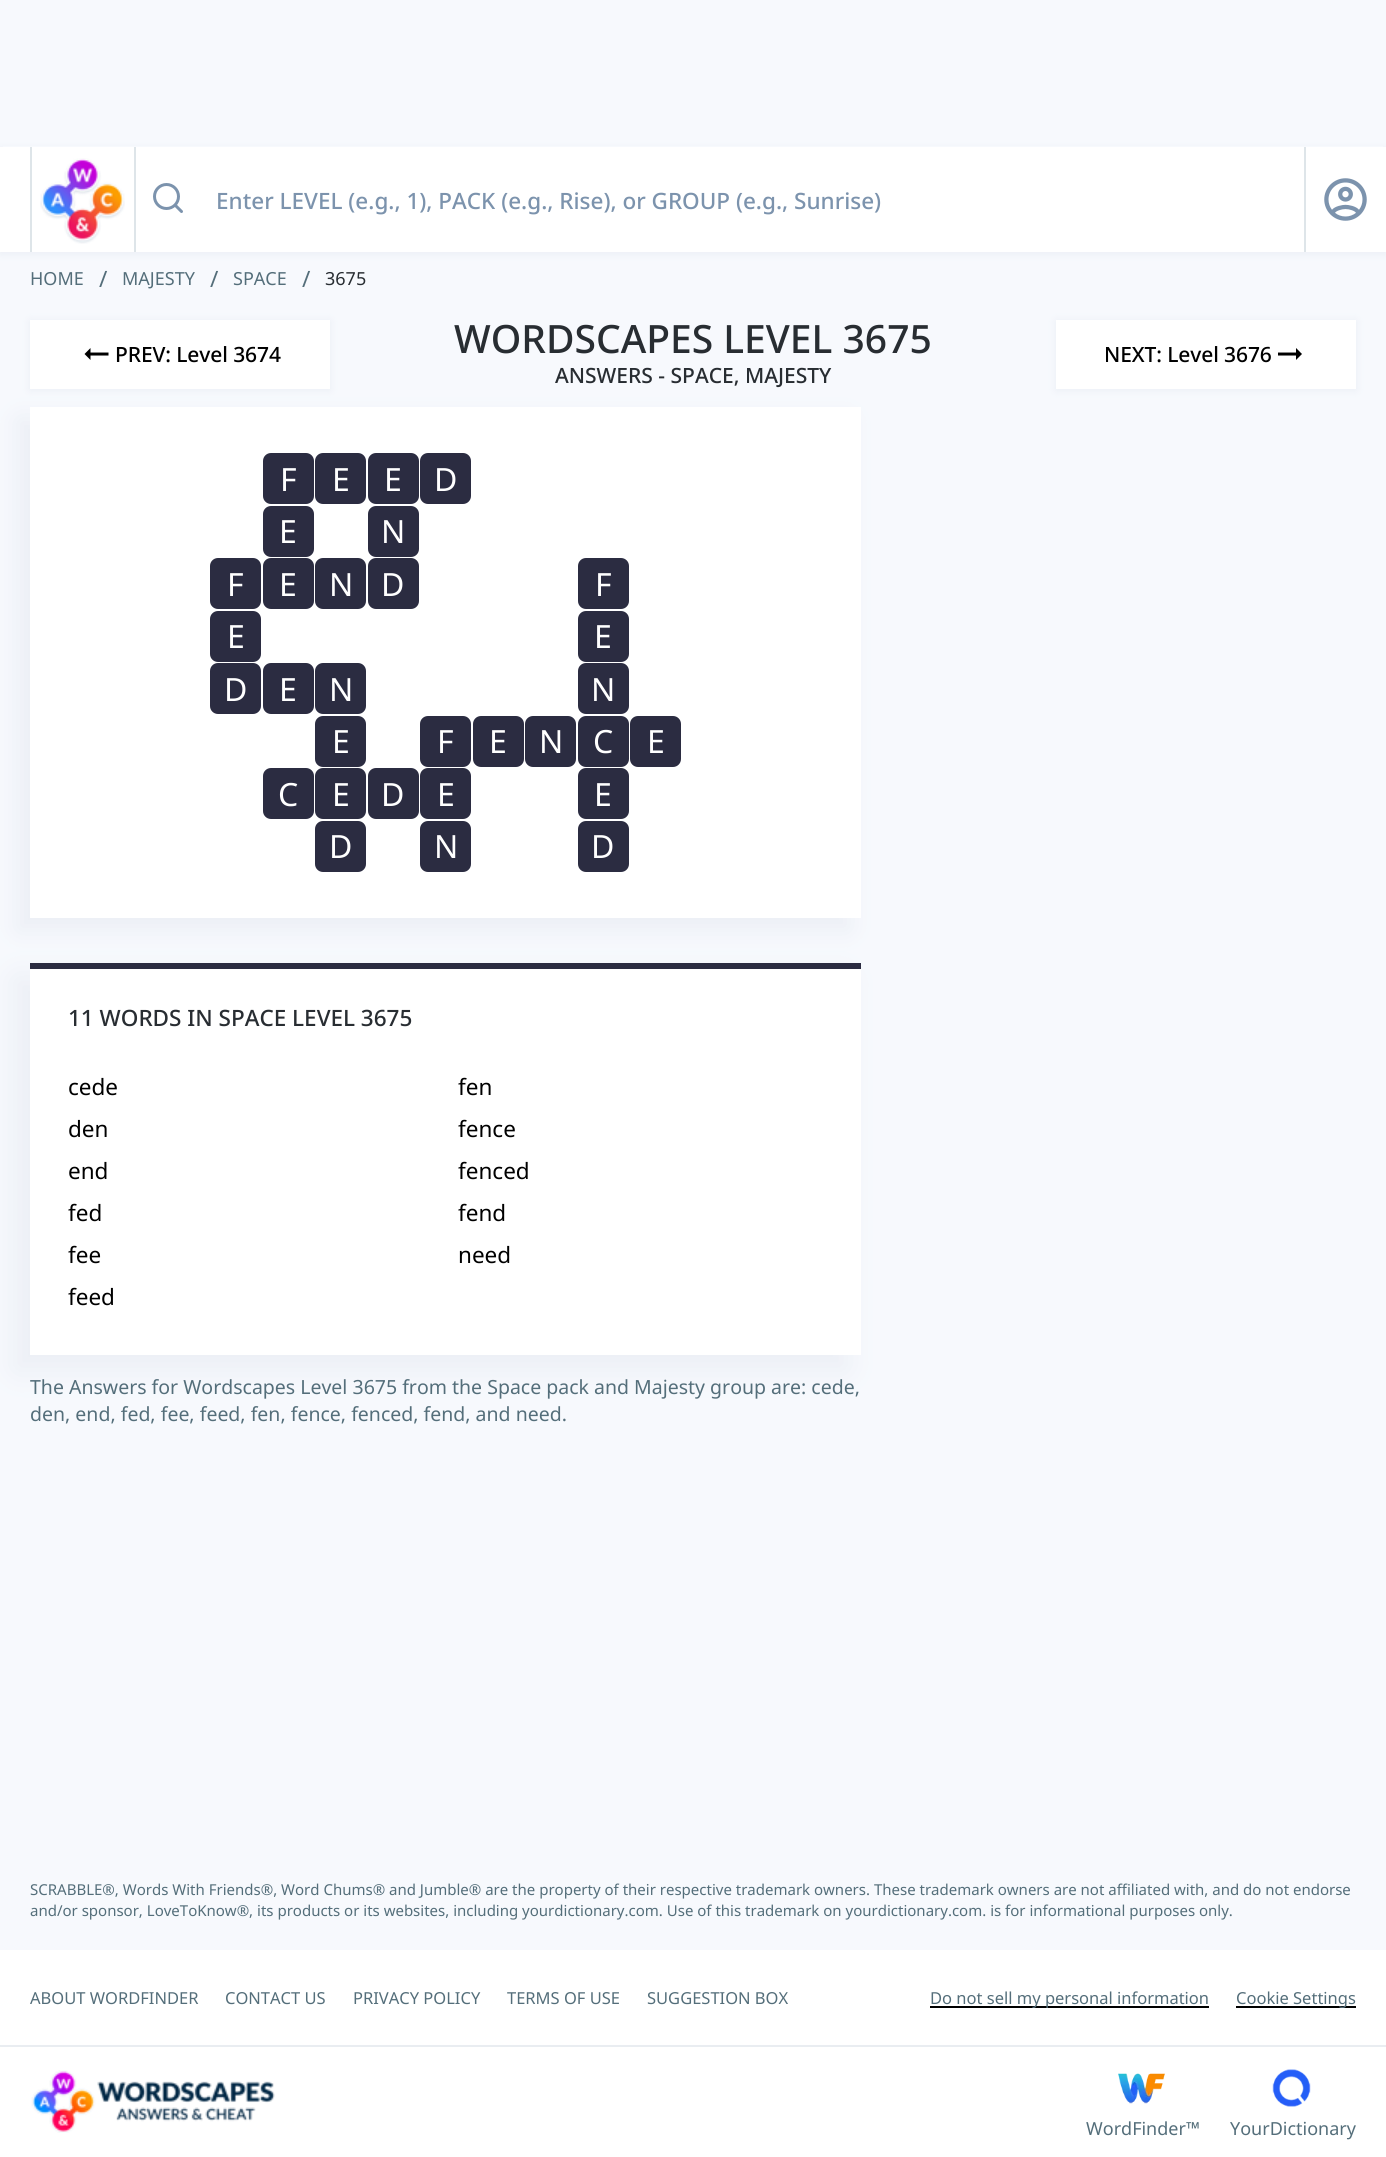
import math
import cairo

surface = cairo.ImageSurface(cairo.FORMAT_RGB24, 1386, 2157)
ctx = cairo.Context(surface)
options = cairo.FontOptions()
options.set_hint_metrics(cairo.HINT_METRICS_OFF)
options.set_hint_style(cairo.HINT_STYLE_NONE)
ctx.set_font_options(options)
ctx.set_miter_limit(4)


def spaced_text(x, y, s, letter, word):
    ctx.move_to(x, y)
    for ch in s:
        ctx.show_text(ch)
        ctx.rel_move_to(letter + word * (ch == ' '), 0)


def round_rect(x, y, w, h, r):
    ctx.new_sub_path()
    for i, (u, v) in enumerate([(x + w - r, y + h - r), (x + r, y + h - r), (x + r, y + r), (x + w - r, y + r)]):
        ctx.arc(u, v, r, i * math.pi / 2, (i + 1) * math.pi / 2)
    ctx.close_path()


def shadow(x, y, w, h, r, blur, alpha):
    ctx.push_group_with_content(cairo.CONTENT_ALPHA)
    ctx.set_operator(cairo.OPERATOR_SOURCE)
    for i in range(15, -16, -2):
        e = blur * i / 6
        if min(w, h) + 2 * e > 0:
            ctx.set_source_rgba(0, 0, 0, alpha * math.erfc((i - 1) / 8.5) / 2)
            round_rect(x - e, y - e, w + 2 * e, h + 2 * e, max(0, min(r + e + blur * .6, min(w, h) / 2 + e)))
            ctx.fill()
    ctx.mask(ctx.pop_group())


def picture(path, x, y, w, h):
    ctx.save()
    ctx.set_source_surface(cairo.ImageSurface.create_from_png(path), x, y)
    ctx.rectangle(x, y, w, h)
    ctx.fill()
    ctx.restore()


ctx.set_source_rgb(0.965, 0.976, 0.992)
ctx.paint()
ctx.set_source_rgb(0.486, 0.576, 0.678)
shadow(0, 149, 1386, 105, 0, 4, 0.1)
ctx.set_source_rgb(0.965, 0.976, 0.992)
ctx.rectangle(3, 146, 1380, 1)
ctx.fill()
ctx.set_source_rgb(1, 1, 1)
ctx.rectangle(0, 147, 1386, 105)
ctx.fill()
ctx.set_source_rgb(0.871, 0.898, 0.914)
ctx.rectangle(134, 147, 2, 105)
ctx.fill()
ctx.rectangle(30, 147, 2, 105)
ctx.fill()
picture("img1.png", 40, 158, 85, 86)
ctx.arc(166.5, 196.5, 12, 0, 2 * math.pi)
ctx.set_source_rgb(0.486, 0.576, 0.678)
ctx.set_line_width(3)
ctx.stroke()
ctx.new_path()
ctx.move_to(181.5, 211.5)
ctx.line_to(175.5, 205.5)
ctx.set_line_cap(cairo.LINE_CAP_ROUND)
ctx.set_line_join(cairo.LINE_JOIN_ROUND)
ctx.stroke()
ctx.select_font_face("Noto Sans Medium")
ctx.set_font_size(22.5)
ctx.move_to(216, 209)
ctx.show_text("Enter LEVEL (e.g., 1), PACK (e.g., Rise), or GROUP (e.g., Sunrise)")
ctx.set_source_rgb(0.871, 0.898, 0.914)
ctx.rectangle(1304, 147, 2, 105)
ctx.fill()
picture("img2.png", 1324, 178, 43, 43)
ctx.select_font_face("Noto Sans")
ctx.set_font_size(18)
ctx.set_source_rgb(0.329, 0.431, 0.478)
ctx.move_to(30, 285)
ctx.show_text("HOME")
ctx.set_font_size(22.5)
ctx.move_to(99, 287)
ctx.show_text("/")
ctx.set_font_size(18)
ctx.move_to(122, 285)
ctx.show_text("MAJESTY")
ctx.set_font_size(22.5)
ctx.move_to(210, 287)
ctx.show_text("/")
ctx.set_font_size(18)
ctx.move_to(233, 285)
ctx.show_text("SPACE")
ctx.set_font_size(22.5)
ctx.move_to(302, 287)
ctx.show_text("/")
ctx.set_font_size(18)
ctx.set_source_rgb(0.157, 0.176, 0.196)
ctx.move_to(325, 285)
ctx.show_text("3675")
ctx.set_source_rgb(0.486, 0.576, 0.678)
shadow(30, 321, 300, 69, 0, 4.5, 0.1)
ctx.set_source_rgb(1, 1, 1)
ctx.rectangle(30, 320, 300, 69)
ctx.fill()
ctx.set_source_rgb(0, 0, 0)
ctx.new_path()
ctx.move_to(90.5, 355.5)
ctx.line_to(108.5, 355.5)
ctx.line_to(108.5, 352.5)
ctx.line_to(90.5, 352.5)
ctx.line_to(90.5, 348)
ctx.line_to(84.5, 354)
ctx.line_to(90.5, 360)
ctx.close_path()
ctx.fill()
ctx.select_font_face("Noto Sans Medium")
ctx.set_font_size(21)
spaced_text(115, 362, "PREV: Level 3674", -0.1, 0)
ctx.set_font_size(39)
ctx.set_source_rgb(0.157, 0.176, 0.196)
ctx.move_to(454, 353)
ctx.show_text("WORDSCAPES LEVEL 3675")
ctx.set_font_size(21)
ctx.move_to(555, 383)
ctx.show_text("ANSWERS - SPACE, MAJESTY")
ctx.set_source_rgb(0.486, 0.576, 0.678)
shadow(1056, 321, 300, 69, 0, 4.5, 0.1)
ctx.set_source_rgb(1, 1, 1)
ctx.rectangle(1056, 320, 300, 69)
ctx.fill()
ctx.set_source_rgb(0, 0, 0)
spaced_text(1104, 362, "NEXT: Level 3676", -0.1, 0)
ctx.new_path()
ctx.move_to(1296, 352.5)
ctx.line_to(1278, 352.5)
ctx.line_to(1278, 355.5)
ctx.line_to(1296, 355.5)
ctx.line_to(1296, 360)
ctx.line_to(1302, 354)
ctx.line_to(1296, 348)
ctx.close_path()
ctx.fill()
ctx.set_source_rgb(0.486, 0.576, 0.678)
shadow(18, 419, 831, 511, 0, 12, 0.1)
ctx.set_source_rgb(1, 1, 1)
ctx.rectangle(30, 407, 831, 511)
ctx.fill()
ctx.set_source_rgb(0.169, 0.173, 0.255)
round_rect(263, 453, 51, 51, 8)
ctx.fill()
ctx.select_font_face("Noto Sans")
ctx.set_font_size(32)
ctx.set_source_rgb(1, 1, 1)
ctx.move_to(280, 491)
ctx.show_text("F")
ctx.set_source_rgb(0.169, 0.173, 0.255)
round_rect(315, 453, 51, 51, 8)
ctx.fill()
ctx.set_source_rgb(1, 1, 1)
ctx.move_to(332, 491)
ctx.show_text("E")
ctx.set_source_rgb(0.169, 0.173, 0.255)
round_rect(368, 453, 51, 51, 8)
ctx.fill()
ctx.set_source_rgb(1, 1, 1)
ctx.move_to(384, 491)
ctx.show_text("E")
ctx.set_source_rgb(0.169, 0.173, 0.255)
round_rect(420, 453, 51, 51, 8)
ctx.fill()
ctx.set_source_rgb(1, 1, 1)
ctx.move_to(434, 491)
ctx.show_text("D")
ctx.set_source_rgb(0.169, 0.173, 0.255)
round_rect(263, 506, 51, 51, 8)
ctx.fill()
ctx.set_source_rgb(1, 1, 1)
ctx.move_to(279, 543)
ctx.show_text("E")
ctx.set_source_rgb(0.169, 0.173, 0.255)
round_rect(368, 506, 51, 51, 8)
ctx.fill()
ctx.set_source_rgb(1, 1, 1)
ctx.move_to(381, 543)
ctx.show_text("N")
ctx.set_source_rgb(0.169, 0.173, 0.255)
round_rect(210, 558, 51, 51, 8)
ctx.fill()
ctx.set_source_rgb(1, 1, 1)
ctx.move_to(227, 596)
ctx.show_text("F")
ctx.set_source_rgb(0.169, 0.173, 0.255)
round_rect(263, 558, 51, 51, 8)
ctx.fill()
ctx.set_source_rgb(1, 1, 1)
ctx.move_to(279, 596)
ctx.show_text("E")
ctx.set_source_rgb(0.169, 0.173, 0.255)
round_rect(315, 558, 51, 51, 8)
ctx.fill()
ctx.set_source_rgb(1, 1, 1)
ctx.move_to(329, 596)
ctx.show_text("N")
ctx.set_source_rgb(0.169, 0.173, 0.255)
round_rect(368, 558, 51, 51, 8)
ctx.fill()
ctx.set_source_rgb(1, 1, 1)
ctx.move_to(381, 596)
ctx.show_text("D")
ctx.set_source_rgb(0.169, 0.173, 0.255)
round_rect(578, 558, 51, 51, 8)
ctx.fill()
ctx.set_source_rgb(1, 1, 1)
ctx.move_to(595, 596)
ctx.show_text("F")
ctx.set_source_rgb(0.169, 0.173, 0.255)
round_rect(210, 611, 51, 51, 8)
ctx.fill()
ctx.set_source_rgb(1, 1, 1)
ctx.move_to(227, 648)
ctx.show_text("E")
ctx.set_source_rgb(0.169, 0.173, 0.255)
round_rect(578, 611, 51, 51, 8)
ctx.fill()
ctx.set_source_rgb(1, 1, 1)
ctx.move_to(594, 648)
ctx.show_text("E")
ctx.set_source_rgb(0.169, 0.173, 0.255)
round_rect(210, 663, 51, 51, 8)
ctx.fill()
ctx.set_source_rgb(1, 1, 1)
ctx.move_to(224, 701)
ctx.show_text("D")
ctx.set_source_rgb(0.169, 0.173, 0.255)
round_rect(263, 663, 51, 51, 8)
ctx.fill()
ctx.set_source_rgb(1, 1, 1)
ctx.move_to(279, 701)
ctx.show_text("E")
ctx.set_source_rgb(0.169, 0.173, 0.255)
round_rect(315, 663, 51, 51, 8)
ctx.fill()
ctx.set_source_rgb(1, 1, 1)
ctx.move_to(329, 701)
ctx.show_text("N")
ctx.set_source_rgb(0.169, 0.173, 0.255)
round_rect(578, 663, 51, 51, 8)
ctx.fill()
ctx.set_source_rgb(1, 1, 1)
ctx.move_to(591, 701)
ctx.show_text("N")
ctx.set_source_rgb(0.169, 0.173, 0.255)
round_rect(315, 716, 51, 51, 8)
ctx.fill()
ctx.set_source_rgb(1, 1, 1)
ctx.move_to(332, 753)
ctx.show_text("E")
ctx.set_source_rgb(0.169, 0.173, 0.255)
round_rect(420, 716, 51, 51, 8)
ctx.fill()
ctx.set_source_rgb(1, 1, 1)
ctx.move_to(437, 753)
ctx.show_text("F")
ctx.set_source_rgb(0.169, 0.173, 0.255)
round_rect(473, 716, 51, 51, 8)
ctx.fill()
ctx.set_source_rgb(1, 1, 1)
ctx.move_to(489, 753)
ctx.show_text("E")
ctx.set_source_rgb(0.169, 0.173, 0.255)
round_rect(525, 716, 51, 51, 8)
ctx.fill()
ctx.set_source_rgb(1, 1, 1)
ctx.move_to(539, 753)
ctx.show_text("N")
ctx.set_source_rgb(0.169, 0.173, 0.255)
round_rect(578, 716, 51, 51, 8)
ctx.fill()
ctx.set_source_rgb(1, 1, 1)
ctx.move_to(593, 753)
ctx.show_text("C")
ctx.set_source_rgb(0.169, 0.173, 0.255)
round_rect(630, 716, 51, 51, 8)
ctx.fill()
ctx.set_source_rgb(1, 1, 1)
ctx.move_to(647, 753)
ctx.show_text("E")
ctx.set_source_rgb(0.169, 0.173, 0.255)
round_rect(263, 768, 51, 51, 8)
ctx.fill()
ctx.set_source_rgb(1, 1, 1)
ctx.move_to(278, 806)
ctx.show_text("C")
ctx.set_source_rgb(0.169, 0.173, 0.255)
round_rect(315, 768, 51, 51, 8)
ctx.fill()
ctx.set_source_rgb(1, 1, 1)
ctx.move_to(332, 806)
ctx.show_text("E")
ctx.set_source_rgb(0.169, 0.173, 0.255)
round_rect(368, 768, 51, 51, 8)
ctx.fill()
ctx.set_source_rgb(1, 1, 1)
ctx.move_to(381, 806)
ctx.show_text("D")
ctx.set_source_rgb(0.169, 0.173, 0.255)
round_rect(420, 768, 51, 51, 8)
ctx.fill()
ctx.set_source_rgb(1, 1, 1)
ctx.move_to(437, 806)
ctx.show_text("E")
ctx.set_source_rgb(0.169, 0.173, 0.255)
round_rect(578, 768, 51, 51, 8)
ctx.fill()
ctx.set_source_rgb(1, 1, 1)
ctx.move_to(594, 806)
ctx.show_text("E")
ctx.set_source_rgb(0.169, 0.173, 0.255)
round_rect(315, 821, 51, 51, 8)
ctx.fill()
ctx.set_source_rgb(1, 1, 1)
ctx.move_to(329, 858)
ctx.show_text("D")
ctx.set_source_rgb(0.169, 0.173, 0.255)
round_rect(420, 821, 51, 51, 8)
ctx.fill()
ctx.set_source_rgb(1, 1, 1)
ctx.move_to(434, 858)
ctx.show_text("N")
ctx.set_source_rgb(0.169, 0.173, 0.255)
round_rect(578, 821, 51, 51, 8)
ctx.fill()
ctx.set_source_rgb(1, 1, 1)
ctx.move_to(591, 858)
ctx.show_text("D")
ctx.set_source_rgb(0.486, 0.576, 0.678)
shadow(15, 978, 831, 392, 0, 15, 0.1)
ctx.set_source_rgb(1, 1, 1)
ctx.rectangle(30, 969, 831, 386)
ctx.fill()
ctx.set_source_rgb(0.169, 0.173, 0.255)
ctx.rectangle(30, 963, 831, 6)
ctx.fill()
ctx.select_font_face("Noto Sans Medium")
ctx.set_font_size(22.5)
ctx.set_source_rgb(0.157, 0.176, 0.196)
ctx.move_to(68, 1026)
ctx.show_text("11 WORDS IN SPACE LEVEL 3675")
ctx.select_font_face("Noto Sans")
ctx.set_source_rgb(0, 0, 0)
ctx.move_to(68, 1095)
ctx.show_text("cede")
ctx.move_to(458, 1095)
ctx.show_text("fen")
ctx.move_to(68, 1137)
ctx.show_text("den")
ctx.move_to(458, 1137)
ctx.show_text("fence")
ctx.move_to(68, 1179)
ctx.show_text("end")
ctx.move_to(458, 1179)
ctx.show_text("fenced")
ctx.move_to(68, 1221)
ctx.show_text("fed")
ctx.move_to(458, 1221)
ctx.show_text("fend")
ctx.move_to(68, 1263)
ctx.show_text("fee")
ctx.move_to(458, 1263)
ctx.show_text("need")
ctx.move_to(68, 1305)
ctx.show_text("feed")
ctx.set_font_size(19.5)
ctx.set_source_rgb(0.329, 0.431, 0.478)
ctx.move_to(30, 1394)
ctx.show_text("The Answers for Wordscapes Level 3675 from the Space pack and Majesty group are: cede,")
ctx.move_to(30, 1421)
ctx.show_text("den, end, fed, fee, feed, fen, fence, fenced, fend, and need.")
ctx.set_source_rgb(1, 1, 1)
ctx.rectangle(0, 1950, 1386, 207)
ctx.fill()
ctx.set_font_size(15)
ctx.set_source_rgb(0.329, 0.431, 0.478)
ctx.move_to(30, 1895)
ctx.show_text("SCRABBLE®, Words With Friends®, Word Chums® and Jumble® are the property of their respective trademark owners. These trademark owners are not affiliated with, and do not endorse")
ctx.move_to(30, 1916)
ctx.show_text("and/or sponsor, LoveToKnow®, its products or its websites, including yourdictionary.com. Use of this trademark on yourdictionary.com. is for informational purposes only.")
ctx.set_source_rgb(0.914, 0.929, 0.945)
ctx.rectangle(0, 2045, 1386, 2)
ctx.fill()
ctx.set_font_size(16.5)
ctx.set_source_rgb(0.329, 0.431, 0.478)
ctx.move_to(30, 2004)
ctx.show_text("ABOUT WORDFINDER")
ctx.move_to(225, 2004)
ctx.show_text("CONTACT US")
ctx.move_to(353, 2004)
ctx.show_text("PRIVACY POLICY")
ctx.move_to(507, 2004)
ctx.show_text("TERMS OF USE")
ctx.move_to(647, 2004)
ctx.show_text("SUGGESTION BOX")
ctx.set_source_rgb(0, 0, 0)
ctx.rectangle(930, 2006, 279, 2)
ctx.fill()
ctx.set_source_rgb(0.329, 0.431, 0.478)
ctx.move_to(930, 2004)
ctx.show_text("Do not sell my personal information")
ctx.set_source_rgb(0, 0, 0)
ctx.rectangle(1236, 2006, 120, 2)
ctx.fill()
ctx.set_source_rgb(0.329, 0.431, 0.478)
ctx.move_to(1236, 2004)
ctx.show_text("Cookie Settings")
picture("img3.png", 31, 2070, 244, 63)
picture("img4.png", 1118, 2073, 47, 31)
ctx.set_font_size(18)
ctx.move_to(1086, 2135)
ctx.show_text("WordFinder™")
picture("img5.png", 1272, 2069, 39, 38)
ctx.move_to(1230, 2135)
ctx.show_text("YourDictionary")
surface.write_to_png("page.png")
